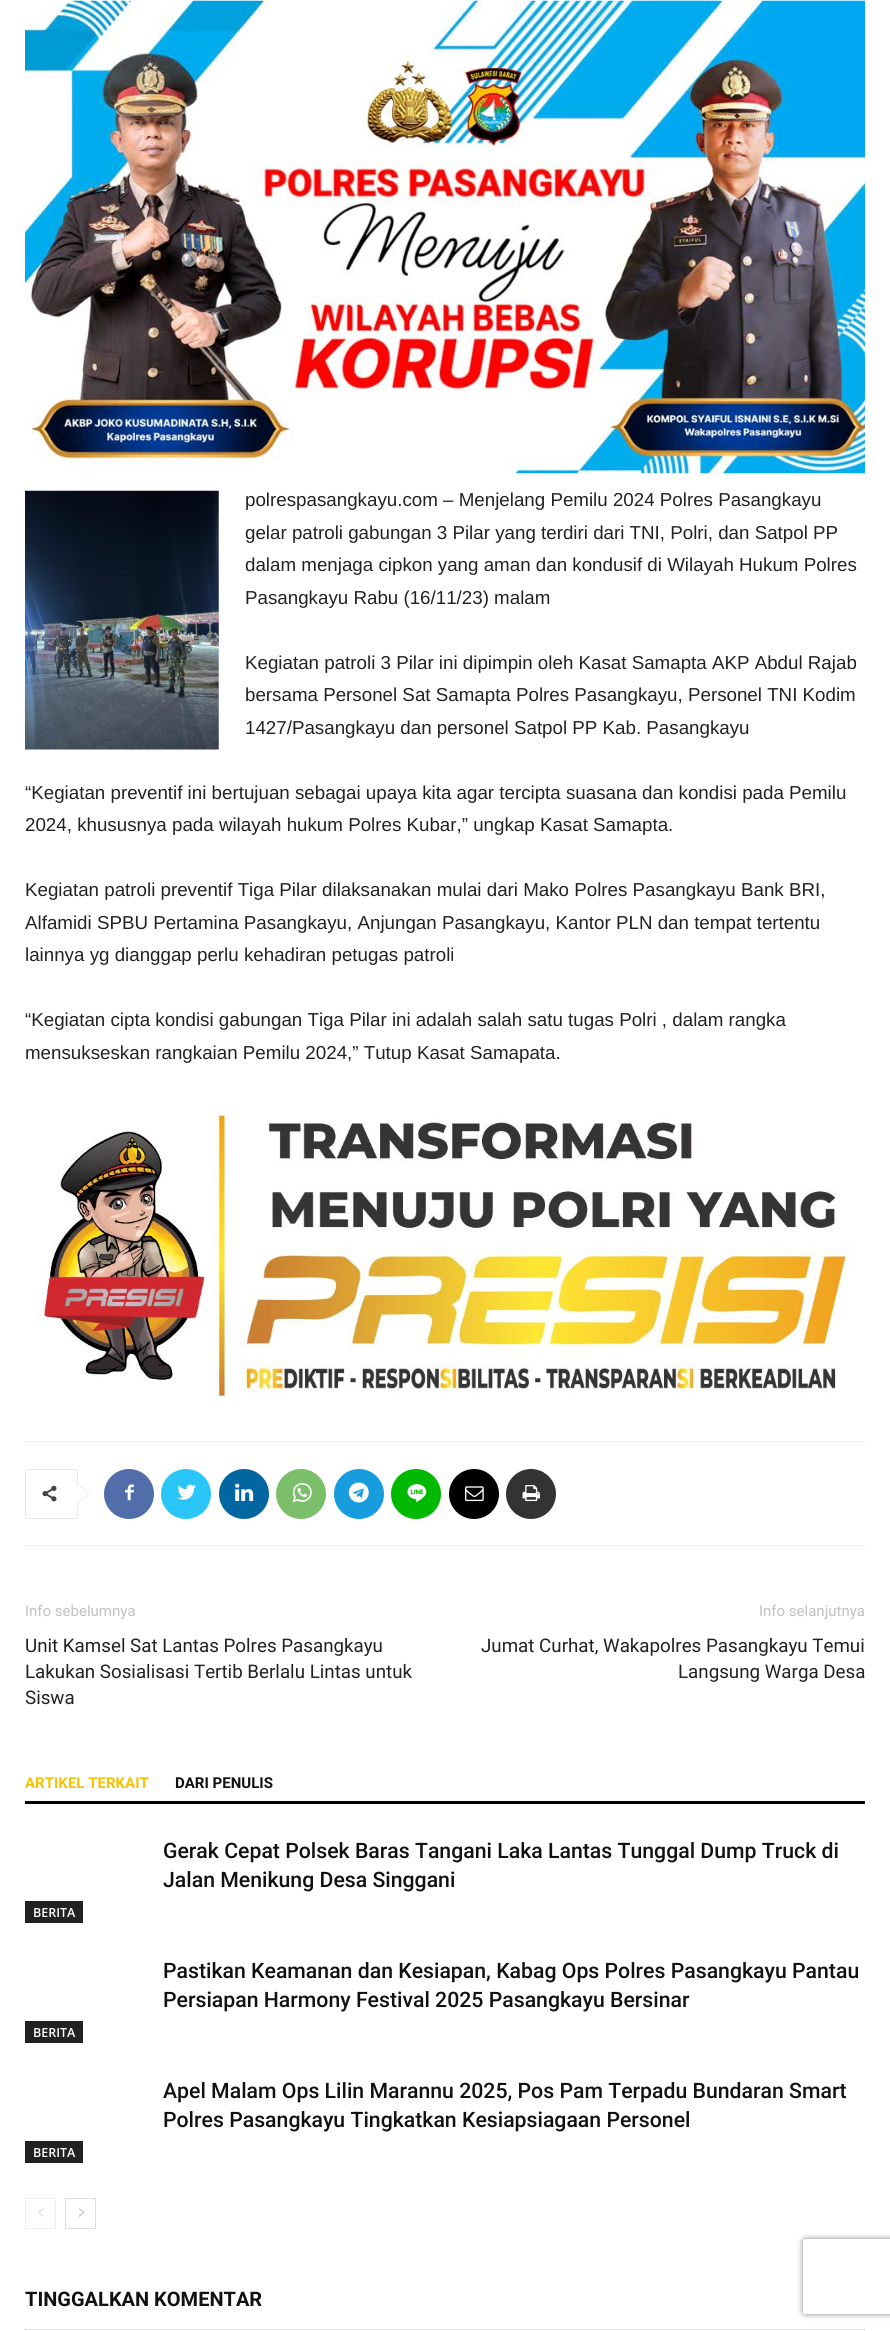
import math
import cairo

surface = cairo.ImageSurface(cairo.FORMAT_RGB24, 890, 2331)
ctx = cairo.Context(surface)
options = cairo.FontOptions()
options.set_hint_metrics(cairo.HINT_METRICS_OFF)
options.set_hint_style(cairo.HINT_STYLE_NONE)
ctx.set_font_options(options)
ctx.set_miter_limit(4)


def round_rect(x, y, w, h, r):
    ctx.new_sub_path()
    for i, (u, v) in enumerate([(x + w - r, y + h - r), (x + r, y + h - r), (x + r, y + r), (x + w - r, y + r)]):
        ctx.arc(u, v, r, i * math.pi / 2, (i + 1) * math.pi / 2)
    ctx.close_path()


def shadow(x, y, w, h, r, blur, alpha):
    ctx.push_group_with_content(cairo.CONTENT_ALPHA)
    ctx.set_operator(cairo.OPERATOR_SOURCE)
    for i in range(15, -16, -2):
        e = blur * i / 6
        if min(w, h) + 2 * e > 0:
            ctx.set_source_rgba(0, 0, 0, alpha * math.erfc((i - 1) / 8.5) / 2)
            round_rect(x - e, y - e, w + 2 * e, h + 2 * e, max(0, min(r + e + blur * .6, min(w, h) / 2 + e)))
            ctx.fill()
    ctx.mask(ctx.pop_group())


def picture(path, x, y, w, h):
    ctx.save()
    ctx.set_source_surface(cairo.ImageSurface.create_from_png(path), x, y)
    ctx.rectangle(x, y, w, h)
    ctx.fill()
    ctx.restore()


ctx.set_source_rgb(1, 1, 1)
ctx.paint()
picture("img1.png", 25, 0, 840, 474)
picture("img2.png", 25, 490, 194, 260)
ctx.select_font_face("Liberation Sans")
ctx.set_font_size(18.75)
ctx.set_source_rgb(0.133, 0.133, 0.133)
ctx.move_to(245, 506)
ctx.show_text("polrespasangkayu.com – Menjelang Pemilu 2024 Polres Pasangkayu")
ctx.move_to(245, 539)
ctx.show_text("gelar patroli gabungan 3 Pilar yang terdiri dari TNI, Polri, dan Satpol PP")
ctx.move_to(245, 571)
ctx.show_text("dalam menjaga cipkon yang aman dan kondusif di Wilayah Hukum Polres")
ctx.move_to(245, 604)
ctx.show_text("Pasangkayu Rabu (16/11/23) malam")
ctx.move_to(245, 669)
ctx.show_text("Kegiatan patroli 3 Pilar ini dipimpin oleh Kasat Samapta AKP Abdul Rajab")
ctx.move_to(245, 701)
ctx.show_text("bersama Personel Sat Samapta Polres Pasangkayu, Personel TNI Kodim")
ctx.move_to(245, 734)
ctx.show_text("1427/Pasangkayu dan personel Satpol PP Kab. Pasangkayu")
ctx.move_to(25, 799)
ctx.show_text("“Kegiatan preventif ini bertujuan sebagai upaya kita agar tercipta suasana dan kondisi pada Pemilu")
ctx.move_to(25, 831)
ctx.show_text("2024, khususnya pada wilayah hukum Polres Kubar,” ungkap Kasat Samapta.")
ctx.move_to(25, 896)
ctx.show_text("Kegiatan patroli preventif Tiga Pilar dilaksanakan mulai dari Mako Polres Pasangkayu Bank BRI,")
ctx.move_to(25, 929)
ctx.show_text("Alfamidi SPBU Pertamina Pasangkayu, Anjungan Pasangkayu, Kantor PLN dan tempat tertentu")
ctx.move_to(25, 961)
ctx.show_text("lainnya yg dianggap perlu kehadiran petugas patroli")
ctx.move_to(25, 1026)
ctx.show_text("“Kegiatan cipta kondisi gabungan Tiga Pilar ini adalah salah satu tugas Polri , dalam rangka")
ctx.move_to(25, 1059)
ctx.show_text("mensukseskan rangkaian Pemilu 2024,” Tutup Kasat Samapata.")
picture("img3.png", 36, 1112, 818, 292)
ctx.set_source_rgb(0.929, 0.929, 0.929)
ctx.rectangle(25, 1441, 840, 1)
ctx.fill()
ctx.rectangle(25, 1545, 840, 1)
ctx.fill()
round_rect(25.5, 1469.5, 52, 49, 2)
ctx.set_source_rgb(0.914, 0.914, 0.914)
ctx.set_line_width(1)
ctx.stroke()
ctx.new_path()
ctx.move_to(76, 1505)
ctx.line_to(76, 1482.5)
ctx.line_to(90, 1494)
ctx.close_path()
ctx.fill()
picture("img4.png", 42, 1485, 15, 17)
ctx.set_source_rgb(1, 1, 1)
ctx.new_path()
ctx.move_to(76, 1504)
ctx.line_to(76, 1484)
ctx.line_to(89, 1494)
ctx.close_path()
ctx.fill()
ctx.set_source_rgb(0.318, 0.431, 0.671)
ctx.arc(129, 1494, 25, 0, 2 * math.pi)
ctx.fill()
picture("img5.png", 125, 1484, 9, 17)
ctx.set_source_rgb(0.161, 0.773, 0.965)
ctx.arc(186, 1494, 25, 0, 2 * math.pi)
ctx.fill()
picture("img6.png", 177, 1484, 19, 16)
ctx.set_source_rgb(0.008, 0.4, 0.627)
ctx.arc(244, 1494, 25, 0, 2 * math.pi)
ctx.fill()
picture("img7.png", 235, 1483, 19, 18)
ctx.set_source_rgb(0.482, 0.749, 0.416)
ctx.arc(301, 1494, 25, 0, 2 * math.pi)
ctx.fill()
picture("img8.png", 292, 1482, 20, 21)
ctx.set_source_rgb(0.09, 0.612, 0.871)
ctx.arc(359, 1494, 25, 0, 2 * math.pi)
ctx.fill()
picture("img9.png", 348, 1482, 21, 21)
ctx.set_source_rgb(0, 0.725, 0)
ctx.arc(416, 1494, 25, 0, 2 * math.pi)
ctx.fill()
picture("img10.png", 407, 1484, 20, 18)
ctx.set_source_rgb(0, 0, 0)
ctx.arc(474, 1494, 25, 0, 2 * math.pi)
ctx.fill()
picture("img11.png", 465, 1486, 19, 16)
ctx.set_source_rgb(0.2, 0.2, 0.2)
ctx.arc(531, 1494, 25, 0, 2 * math.pi)
ctx.fill()
picture("img12.png", 522, 1485, 18, 17)
ctx.select_font_face("Roboto")
ctx.set_font_size(15)
ctx.set_source_rgb(0.757, 0.757, 0.757)
ctx.move_to(25, 1616)
ctx.show_text("Info sebelumnya")
ctx.set_font_size(18.75)
ctx.set_source_rgb(0.133, 0.133, 0.133)
ctx.move_to(25, 1652)
ctx.show_text("Unit Kamsel Sat Lantas Polres Pasangkayu")
ctx.move_to(25, 1678)
ctx.show_text("Lakukan Sosialisasi Tertib Berlalu Lintas untuk")
ctx.move_to(25, 1704)
ctx.show_text("Siswa")
ctx.set_font_size(15)
ctx.set_source_rgb(0.757, 0.757, 0.757)
ctx.move_to(759, 1616)
ctx.show_text("Info selanjutnya")
ctx.set_font_size(18.75)
ctx.set_source_rgb(0.133, 0.133, 0.133)
ctx.move_to(481, 1652)
ctx.show_text("Jumat Curhat, Wakapolres Pasangkayu Temui")
ctx.move_to(678, 1678)
ctx.show_text("Langsung Warga Desa")
ctx.set_source_rgb(0, 0, 0)
ctx.rectangle(25, 1801, 840, 3)
ctx.fill()
ctx.select_font_face("Roboto", cairo.FONT_SLANT_NORMAL, cairo.FONT_WEIGHT_BOLD)
ctx.set_font_size(15)
ctx.set_source_rgb(0.969, 0.761, 0)
ctx.move_to(25, 1788)
ctx.show_text("ARTIKEL TERKAIT")
ctx.set_source_rgb(0.067, 0.067, 0.067)
ctx.move_to(175, 1788)
ctx.show_text("DARI PENULIS")
ctx.select_font_face("Roboto Medium")
ctx.set_font_size(21.25)
ctx.move_to(163, 1858)
ctx.show_text("Gerak Cepat Polsek Baras Tangani Laka Lantas Tunggal Dump Truck di")
ctx.move_to(163, 1887)
ctx.show_text("Jalan Menikung Desa Singgani")
ctx.set_source_rgb(0.133, 0.133, 0.133)
ctx.rectangle(25, 1901, 58, 22)
ctx.fill()
ctx.select_font_face("Open Sans SemiBold")
ctx.set_font_size(12.5)
ctx.set_source_rgb(1, 1, 1)
ctx.move_to(33, 1917)
ctx.show_text("BERITA")
ctx.select_font_face("Roboto Medium")
ctx.set_font_size(21.25)
ctx.set_source_rgb(0.067, 0.067, 0.067)
ctx.move_to(163, 1978)
ctx.show_text("Pastikan Keamanan dan Kesiapan, Kabag Ops Polres Pasangkayu Pantau")
ctx.move_to(163, 2007)
ctx.show_text("Persiapan Harmony Festival 2025 Pasangkayu Bersinar")
ctx.set_source_rgb(0.133, 0.133, 0.133)
ctx.rectangle(25, 2021, 58, 22)
ctx.fill()
ctx.select_font_face("Open Sans SemiBold")
ctx.set_font_size(12.5)
ctx.set_source_rgb(1, 1, 1)
ctx.move_to(33, 2037)
ctx.show_text("BERITA")
ctx.select_font_face("Roboto Medium")
ctx.set_font_size(21.25)
ctx.set_source_rgb(0.067, 0.067, 0.067)
ctx.move_to(163, 2098)
ctx.show_text("Apel Malam Ops Lilin Marannu 2025, Pos Pam Terpadu Bundaran Smart")
ctx.move_to(163, 2127)
ctx.show_text("Polres Pasangkayu Tingkatkan Kesiapsiagaan Personel")
ctx.set_source_rgb(0.133, 0.133, 0.133)
ctx.rectangle(25, 2141, 58, 22)
ctx.fill()
ctx.select_font_face("Open Sans SemiBold")
ctx.set_font_size(12.5)
ctx.set_source_rgb(1, 1, 1)
ctx.move_to(33, 2157)
ctx.show_text("BERITA")
ctx.rectangle(25.5, 2198.5, 30, 30)
ctx.set_source_rgb(0.933, 0.933, 0.933)
ctx.stroke()
picture("img13.png", 38, 2208, 6, 9)
ctx.rectangle(65.5, 2198.5, 30, 30)
ctx.set_source_rgb(0.863, 0.863, 0.863)
ctx.stroke()
picture("img14.png", 78, 2208, 7, 9)
ctx.select_font_face("Roboto", cairo.FONT_SLANT_NORMAL, cairo.FONT_WEIGHT_BOLD)
ctx.set_font_size(20)
ctx.set_source_rgb(0.067, 0.067, 0.067)
ctx.move_to(25, 2306)
ctx.show_text("TINGGALKAN KOMENTAR")
ctx.rectangle(25.5, 2329.5, 839, 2)
ctx.set_source_rgb(0.882, 0.882, 0.882)
ctx.stroke()
ctx.save()
ctx.set_fill_rule(cairo.FILL_RULE_EVEN_ODD)
ctx.new_path()
ctx.move_to(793, 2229)
ctx.line_to(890, 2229)
ctx.line_to(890, 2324)
ctx.line_to(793, 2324)
ctx.close_path()
ctx.move_to(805.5, 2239)
ctx.line_to(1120.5, 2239)
ctx.curve_to(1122, 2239, 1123, 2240, 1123, 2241.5)
ctx.line_to(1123, 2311.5)
ctx.curve_to(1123, 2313, 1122, 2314, 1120.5, 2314)
ctx.line_to(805.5, 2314)
ctx.curve_to(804, 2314, 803, 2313, 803, 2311.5)
ctx.line_to(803, 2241.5)
ctx.curve_to(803, 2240, 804, 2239, 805.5, 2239)
ctx.close_path()
ctx.clip()
ctx.set_source_rgb(0.502, 0.502, 0.502)
shadow(803, 2239, 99, 75, 2.5, 3, 1)
ctx.restore()
surface.write_to_png("page.png")
